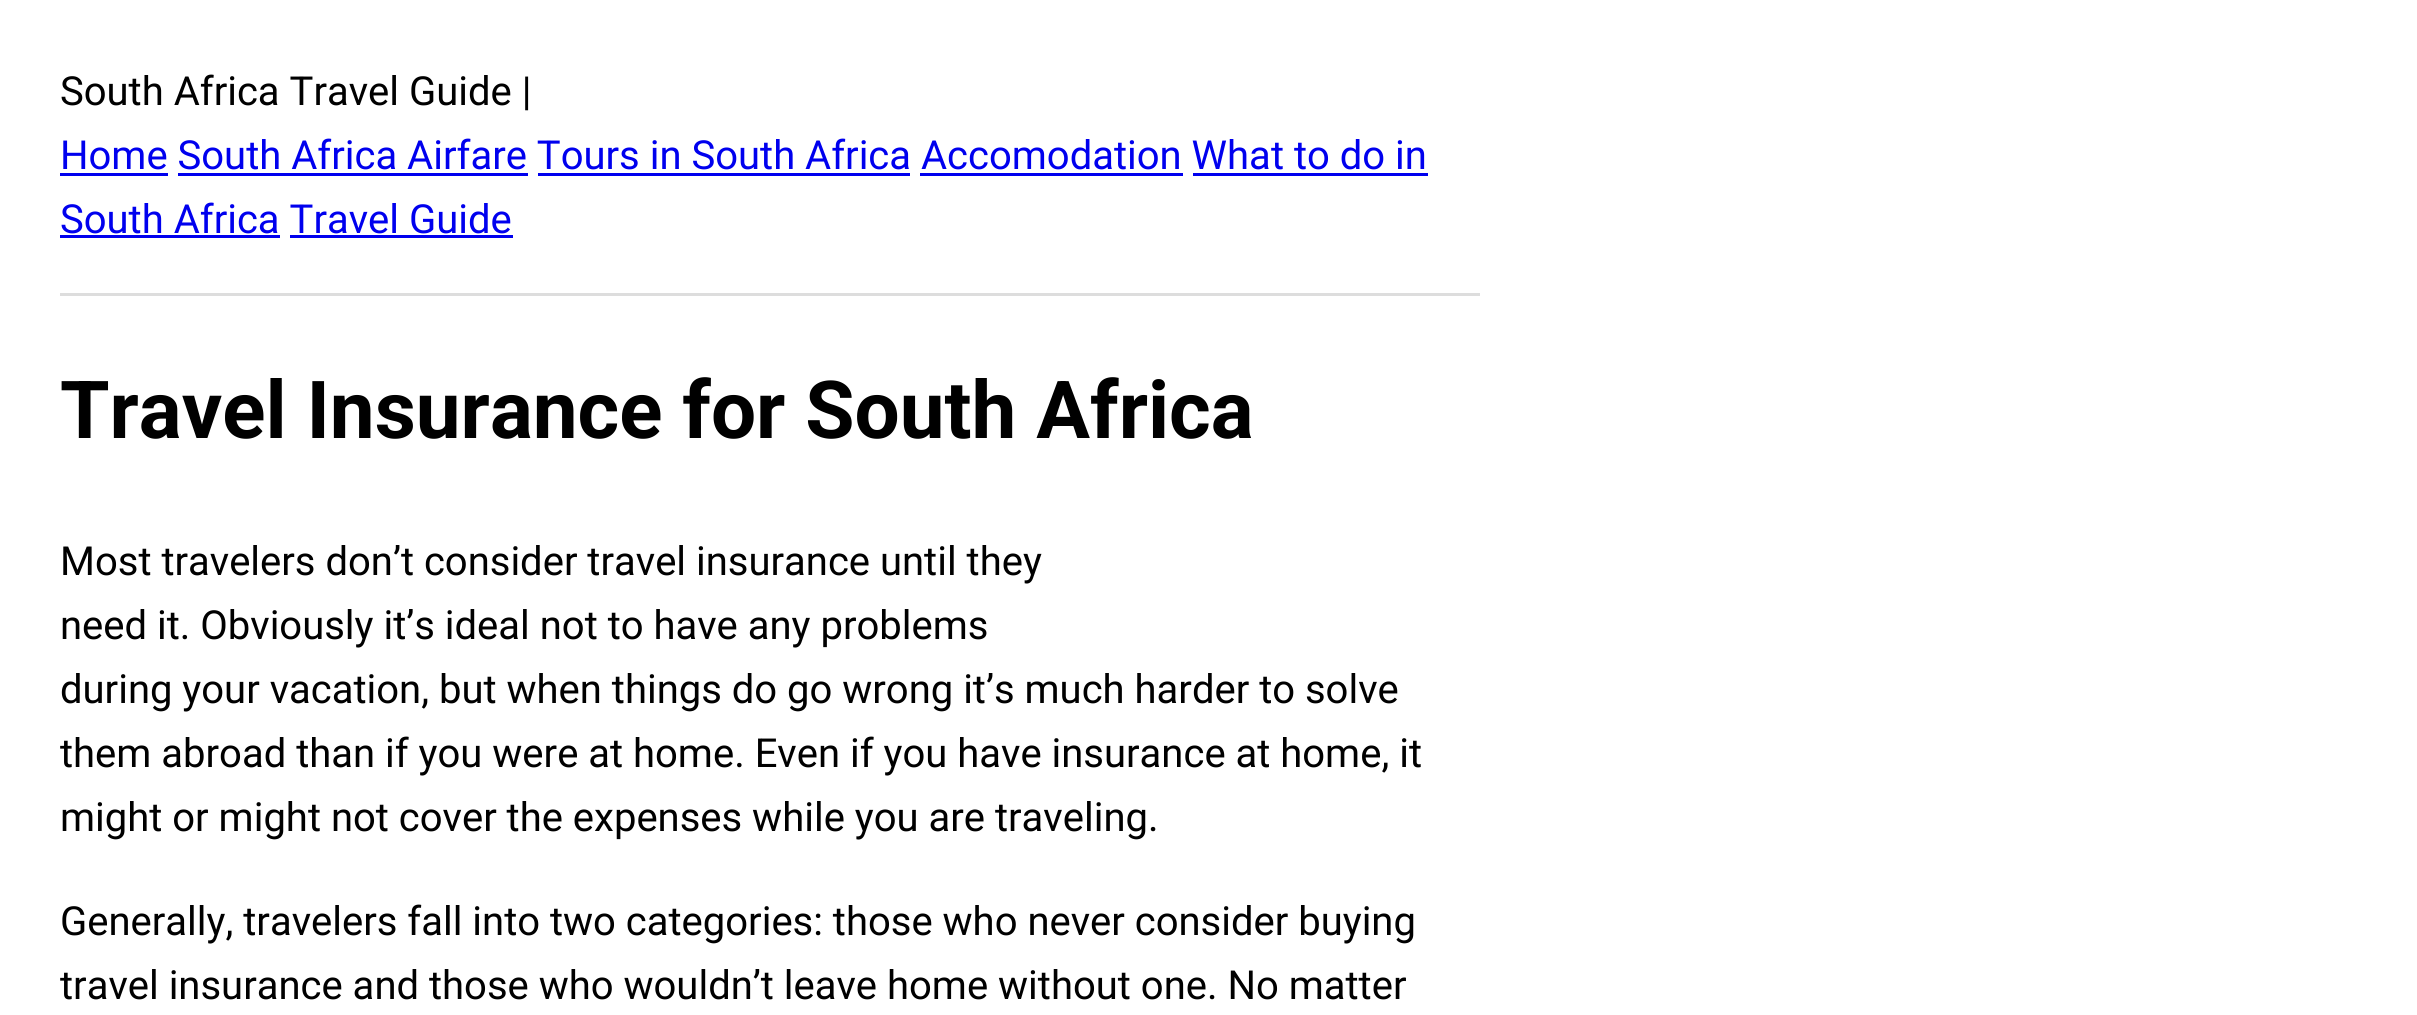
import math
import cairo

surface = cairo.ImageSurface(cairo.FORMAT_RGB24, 2417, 1015)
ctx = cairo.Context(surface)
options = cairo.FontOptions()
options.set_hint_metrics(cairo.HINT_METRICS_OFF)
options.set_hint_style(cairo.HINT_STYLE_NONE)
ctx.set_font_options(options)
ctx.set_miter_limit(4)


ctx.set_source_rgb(1, 1, 1)
ctx.paint()
ctx.select_font_face("Roboto")
ctx.set_font_size(40)
ctx.set_source_rgb(0, 0, 0)
ctx.move_to(60, 105)
ctx.show_text("South Africa Travel Guide |")
ctx.set_source_rgb(0, 0, 0.933)
ctx.move_to(60, 169)
ctx.show_text("Home South Africa Airfare Tours in South Africa Accomodation What to do in")
ctx.rectangle(60, 173, 108, 3)
ctx.fill()
ctx.rectangle(178, 173, 350, 3)
ctx.fill()
ctx.rectangle(538, 173, 372, 3)
ctx.fill()
ctx.rectangle(920, 173, 263, 3)
ctx.fill()
ctx.move_to(60, 233)
ctx.show_text("South Africa Travel Guide")
ctx.rectangle(1193, 173, 235, 3)
ctx.fill()
ctx.rectangle(60, 235, 220, 3)
ctx.fill()
ctx.rectangle(290, 235, 223, 3)
ctx.fill()
ctx.set_source_rgb(0.867, 0.867, 0.867)
ctx.rectangle(60, 293, 1420, 3)
ctx.fill()
ctx.select_font_face("Roboto", cairo.FONT_SLANT_NORMAL, cairo.FONT_WEIGHT_BOLD)
ctx.set_font_size(80)
ctx.set_source_rgb(0, 0, 0)
ctx.move_to(60, 438)
ctx.show_text("Travel Insurance for South Africa")
ctx.select_font_face("Roboto")
ctx.set_font_size(40)
ctx.move_to(60, 575)
ctx.show_text("Most travelers don’t consider travel insurance until they")
ctx.move_to(60, 639)
ctx.show_text("need it. Obviously it’s ideal not to have any problems")
ctx.move_to(60, 703)
ctx.show_text("during your vacation, but when things do go wrong it’s much harder to solve")
ctx.move_to(60, 767)
ctx.show_text("them abroad than if you were at home. Even if you have insurance at home, it")
ctx.move_to(60, 831)
ctx.show_text("might or might not cover the expenses while you are traveling.")
ctx.move_to(60, 935)
ctx.show_text("Generally, travelers fall into two categories: those who never consider buying")
ctx.move_to(60, 999)
ctx.show_text("travel insurance and those who wouldn’t leave home without one. No matter")
surface.write_to_png("page.png")
